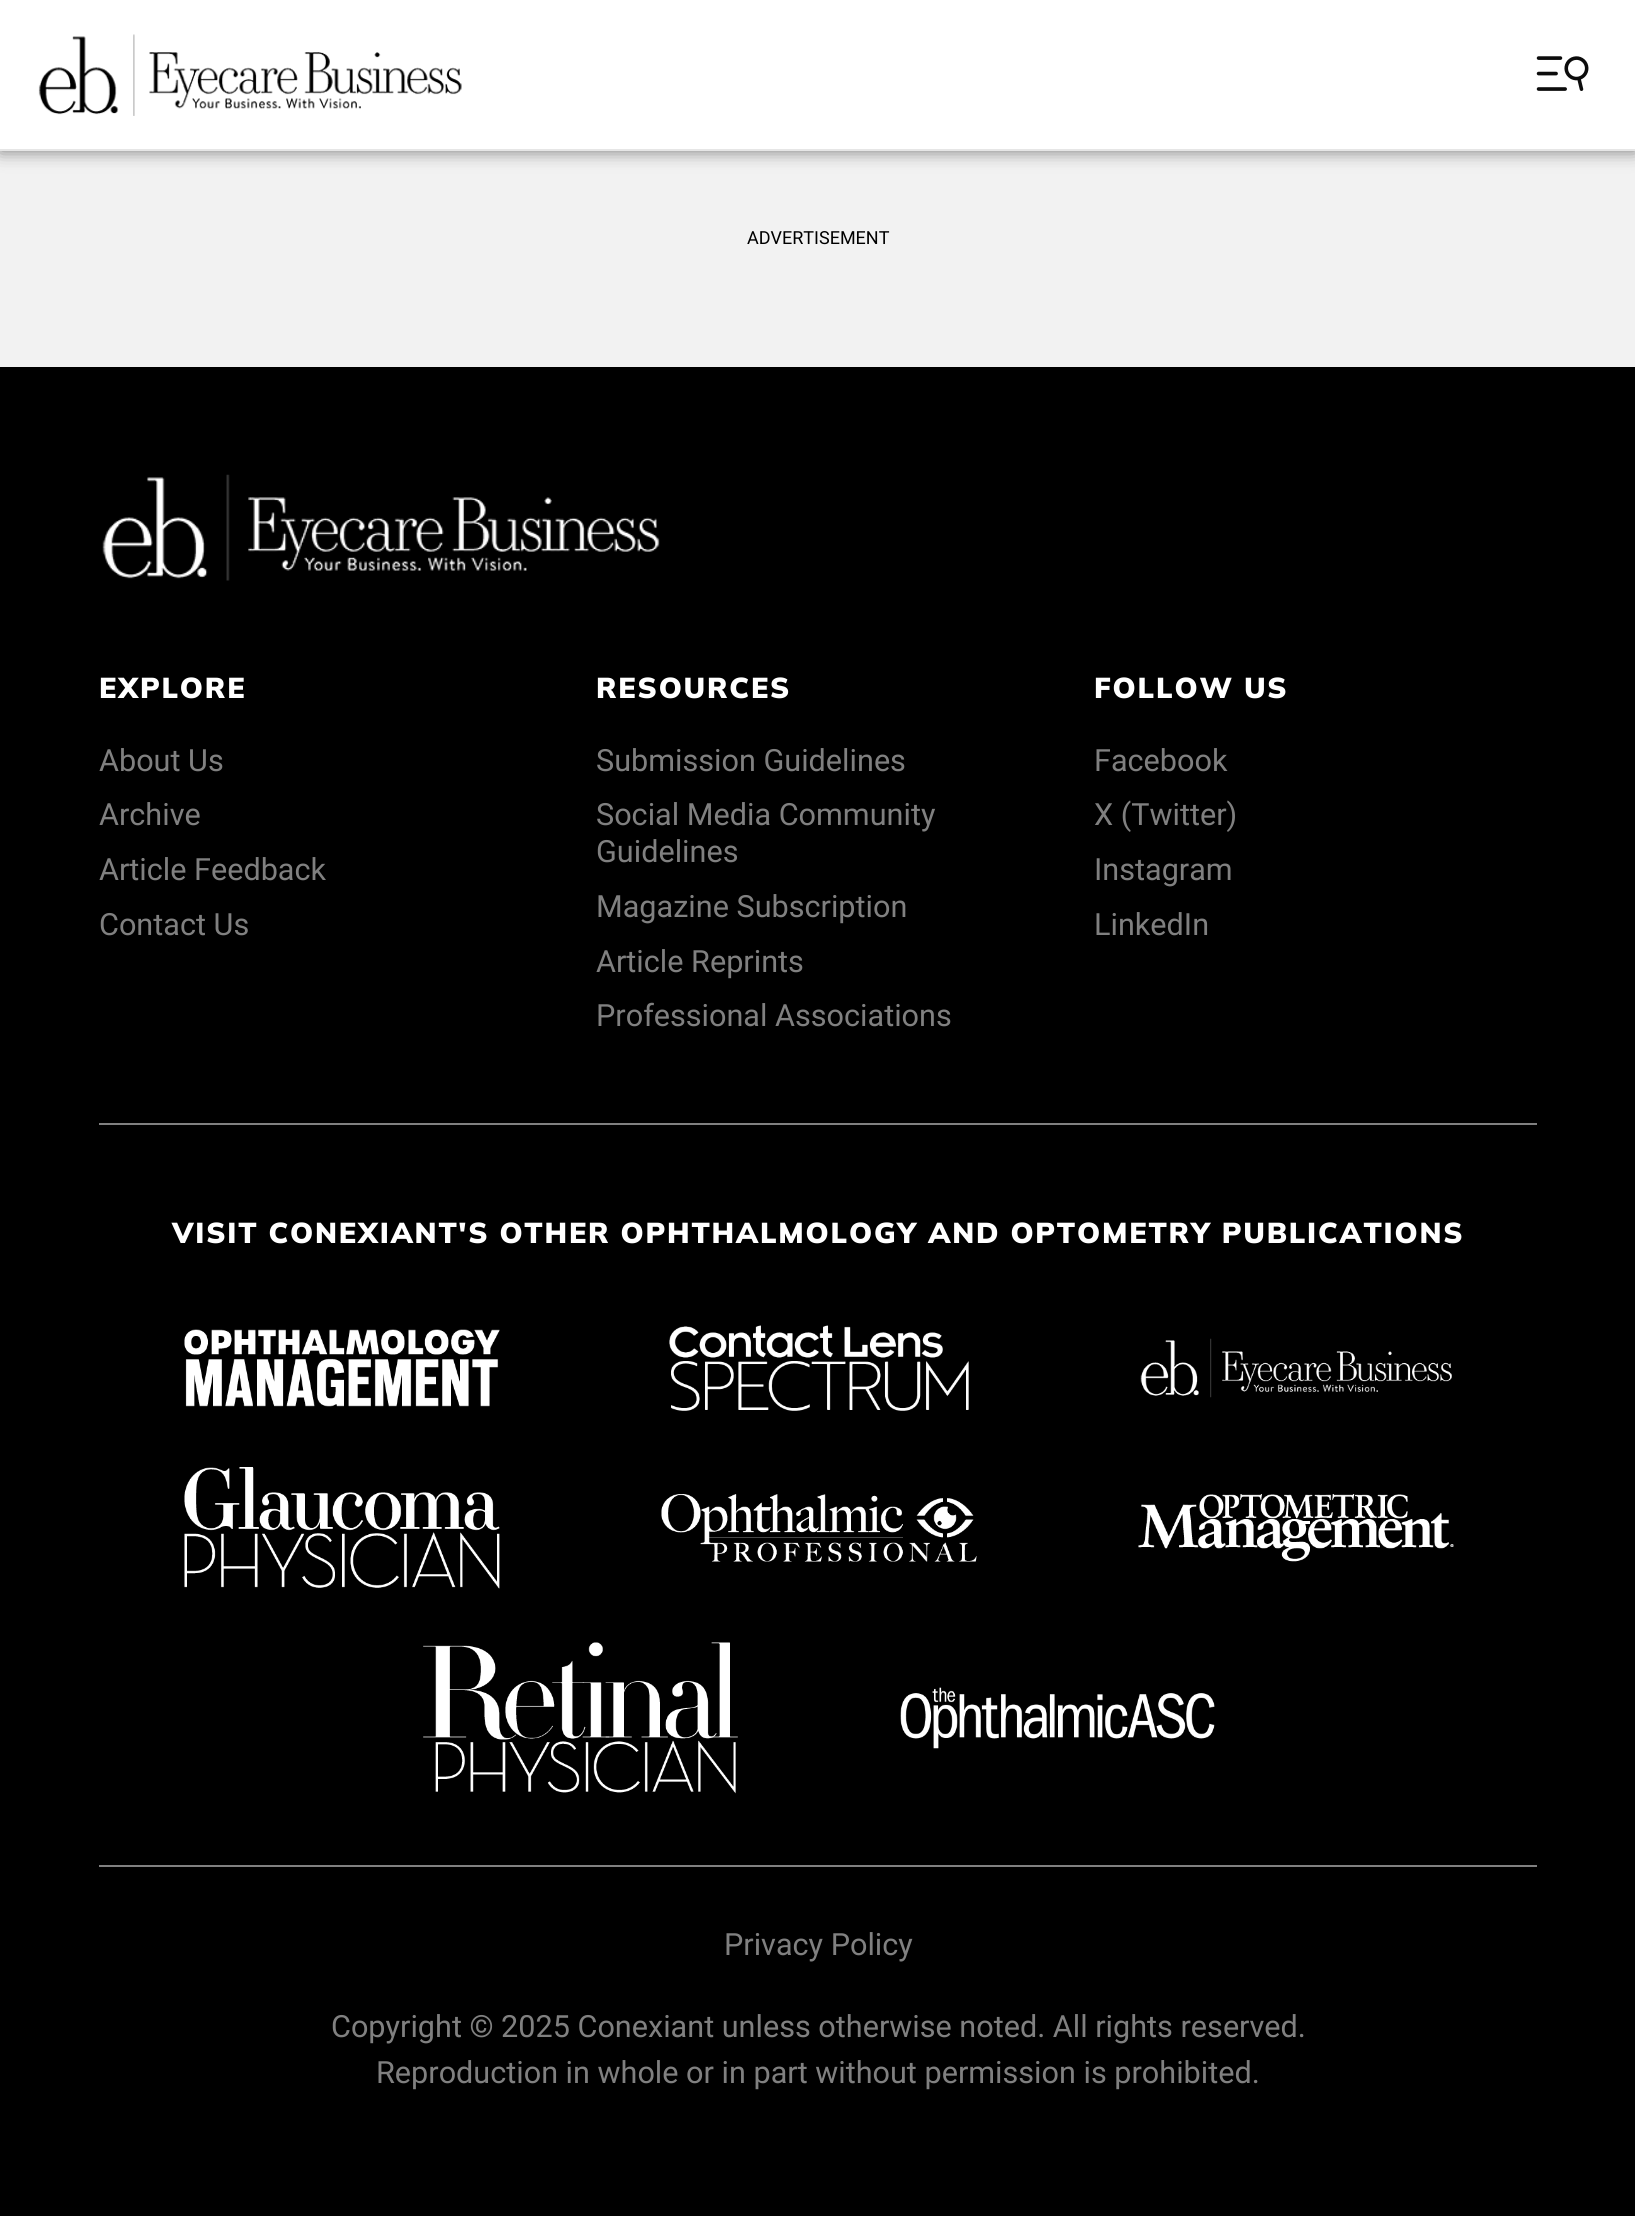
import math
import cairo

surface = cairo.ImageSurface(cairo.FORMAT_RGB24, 1635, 2216)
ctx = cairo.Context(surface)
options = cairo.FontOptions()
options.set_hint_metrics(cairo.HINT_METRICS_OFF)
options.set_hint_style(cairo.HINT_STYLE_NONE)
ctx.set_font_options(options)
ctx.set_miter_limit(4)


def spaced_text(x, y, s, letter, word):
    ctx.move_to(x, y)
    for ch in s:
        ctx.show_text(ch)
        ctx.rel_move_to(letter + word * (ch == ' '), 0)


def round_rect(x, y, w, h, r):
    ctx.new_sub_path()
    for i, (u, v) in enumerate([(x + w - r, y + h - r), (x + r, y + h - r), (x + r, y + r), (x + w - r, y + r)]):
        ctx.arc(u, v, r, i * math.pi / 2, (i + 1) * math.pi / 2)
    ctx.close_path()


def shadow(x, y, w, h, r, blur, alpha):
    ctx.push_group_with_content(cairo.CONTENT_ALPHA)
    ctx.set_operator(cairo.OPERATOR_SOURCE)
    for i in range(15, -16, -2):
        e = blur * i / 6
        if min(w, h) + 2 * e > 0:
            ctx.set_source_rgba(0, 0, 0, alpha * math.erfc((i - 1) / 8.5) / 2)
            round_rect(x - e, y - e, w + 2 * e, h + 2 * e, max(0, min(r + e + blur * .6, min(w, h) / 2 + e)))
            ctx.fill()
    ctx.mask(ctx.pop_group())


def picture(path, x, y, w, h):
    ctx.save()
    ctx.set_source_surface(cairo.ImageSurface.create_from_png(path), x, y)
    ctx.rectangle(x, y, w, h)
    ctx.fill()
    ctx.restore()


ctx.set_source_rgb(0.949, 0.949, 0.949)
ctx.paint()
ctx.set_source_rgb(0, 0, 0)
shadow(0, 0, 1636, 151, 0, 9, 0.5)
ctx.set_source_rgb(1, 1, 1)
ctx.rectangle(0, 0, 1635, 149)
ctx.fill()
ctx.set_source_rgb(0.902, 0.902, 0.902)
ctx.rectangle(0, 149, 1635, 2)
ctx.fill()
picture("img1.png", 38, 34, 424, 82)
picture("img2.png", 1536, 56, 53, 35)
ctx.select_font_face("Roboto")
ctx.set_font_size(18)
ctx.set_source_rgb(0, 0, 0)
ctx.move_to(747, 244)
ctx.show_text("ADVERTISEMENT")
ctx.rectangle(0, 367, 1635, 1849)
ctx.fill()
ctx.set_source_rgb(0.502, 0.502, 0.502)
ctx.rectangle(99, 1123, 1438, 2)
ctx.fill()
picture("img3.png", 102, 474, 558, 107)
ctx.select_font_face("Mulish Black")
ctx.set_font_size(28.8)
ctx.set_source_rgb(1, 1, 1)
spaced_text(99, 698, "EXPLORE", 1.8, 0)
ctx.select_font_face("Roboto")
ctx.set_font_size(30.6)
ctx.set_source_rgb(0.502, 0.502, 0.502)
ctx.move_to(99, 771)
ctx.show_text("About Us")
ctx.move_to(99, 825)
ctx.show_text("Archive")
ctx.move_to(99, 880)
ctx.show_text("Article Feedback")
ctx.move_to(99, 935)
ctx.show_text("Contact Us")
ctx.select_font_face("Mulish Black")
ctx.set_font_size(28.8)
ctx.set_source_rgb(1, 1, 1)
spaced_text(596, 698, "RESOURCES", 1.8, 0)
ctx.select_font_face("Roboto")
ctx.set_font_size(30.6)
ctx.set_source_rgb(0.502, 0.502, 0.502)
ctx.move_to(596, 771)
ctx.show_text("Submission Guidelines")
ctx.move_to(596, 825)
ctx.show_text("Social Media Community")
ctx.move_to(596, 862)
ctx.show_text("Guidelines")
ctx.move_to(596, 917)
ctx.show_text("Magazine Subscription")
ctx.move_to(596, 972)
ctx.show_text("Article Reprints")
ctx.move_to(596, 1026)
ctx.show_text("Professional Associations")
ctx.select_font_face("Mulish Black")
ctx.set_font_size(28.8)
ctx.set_source_rgb(1, 1, 1)
spaced_text(1094, 698, "FOLLOW US", 1.8, 0)
ctx.select_font_face("Roboto")
ctx.set_font_size(30.6)
ctx.set_source_rgb(0.502, 0.502, 0.502)
ctx.move_to(1094, 771)
ctx.show_text("Facebook")
ctx.move_to(1094, 825)
ctx.show_text("X (Twitter)")
ctx.move_to(1094, 880)
ctx.show_text("Instagram")
ctx.move_to(1094, 935)
ctx.show_text("LinkedIn")
ctx.rectangle(99, 1865, 1438, 2)
ctx.fill()
ctx.select_font_face("Mulish Black")
ctx.set_font_size(28.8)
ctx.set_source_rgb(1, 1, 1)
spaced_text(172, 1243, "VISIT CONEXIANT'S OTHER OPHTHALMOLOGY AND OPTOMETRY PUBLICATIONS", 1.8, 0)
picture("img4.png", 184, 1329, 316, 78)
picture("img5.png", 669, 1325, 300, 86)
picture("img6.png", 1140, 1338, 312, 60)
picture("img7.png", 184, 1467, 316, 122)
picture("img8.png", 661, 1494, 316, 68)
picture("img9.png", 1138, 1494, 316, 68)
picture("img10.png", 423, 1642, 315, 152)
picture("img11.png", 900, 1687, 315, 62)
ctx.select_font_face("Roboto")
ctx.set_font_size(30.6)
ctx.set_source_rgb(0.502, 0.502, 0.502)
ctx.move_to(724, 1955)
ctx.show_text("Privacy Policy")
ctx.move_to(331, 2037)
ctx.show_text("Copyright © 2025 Conexiant unless otherwise noted. All rights reserved.")
ctx.move_to(376, 2083)
ctx.show_text("Reproduction in whole or in part without permission is prohibited.")
surface.write_to_png("page.png")
